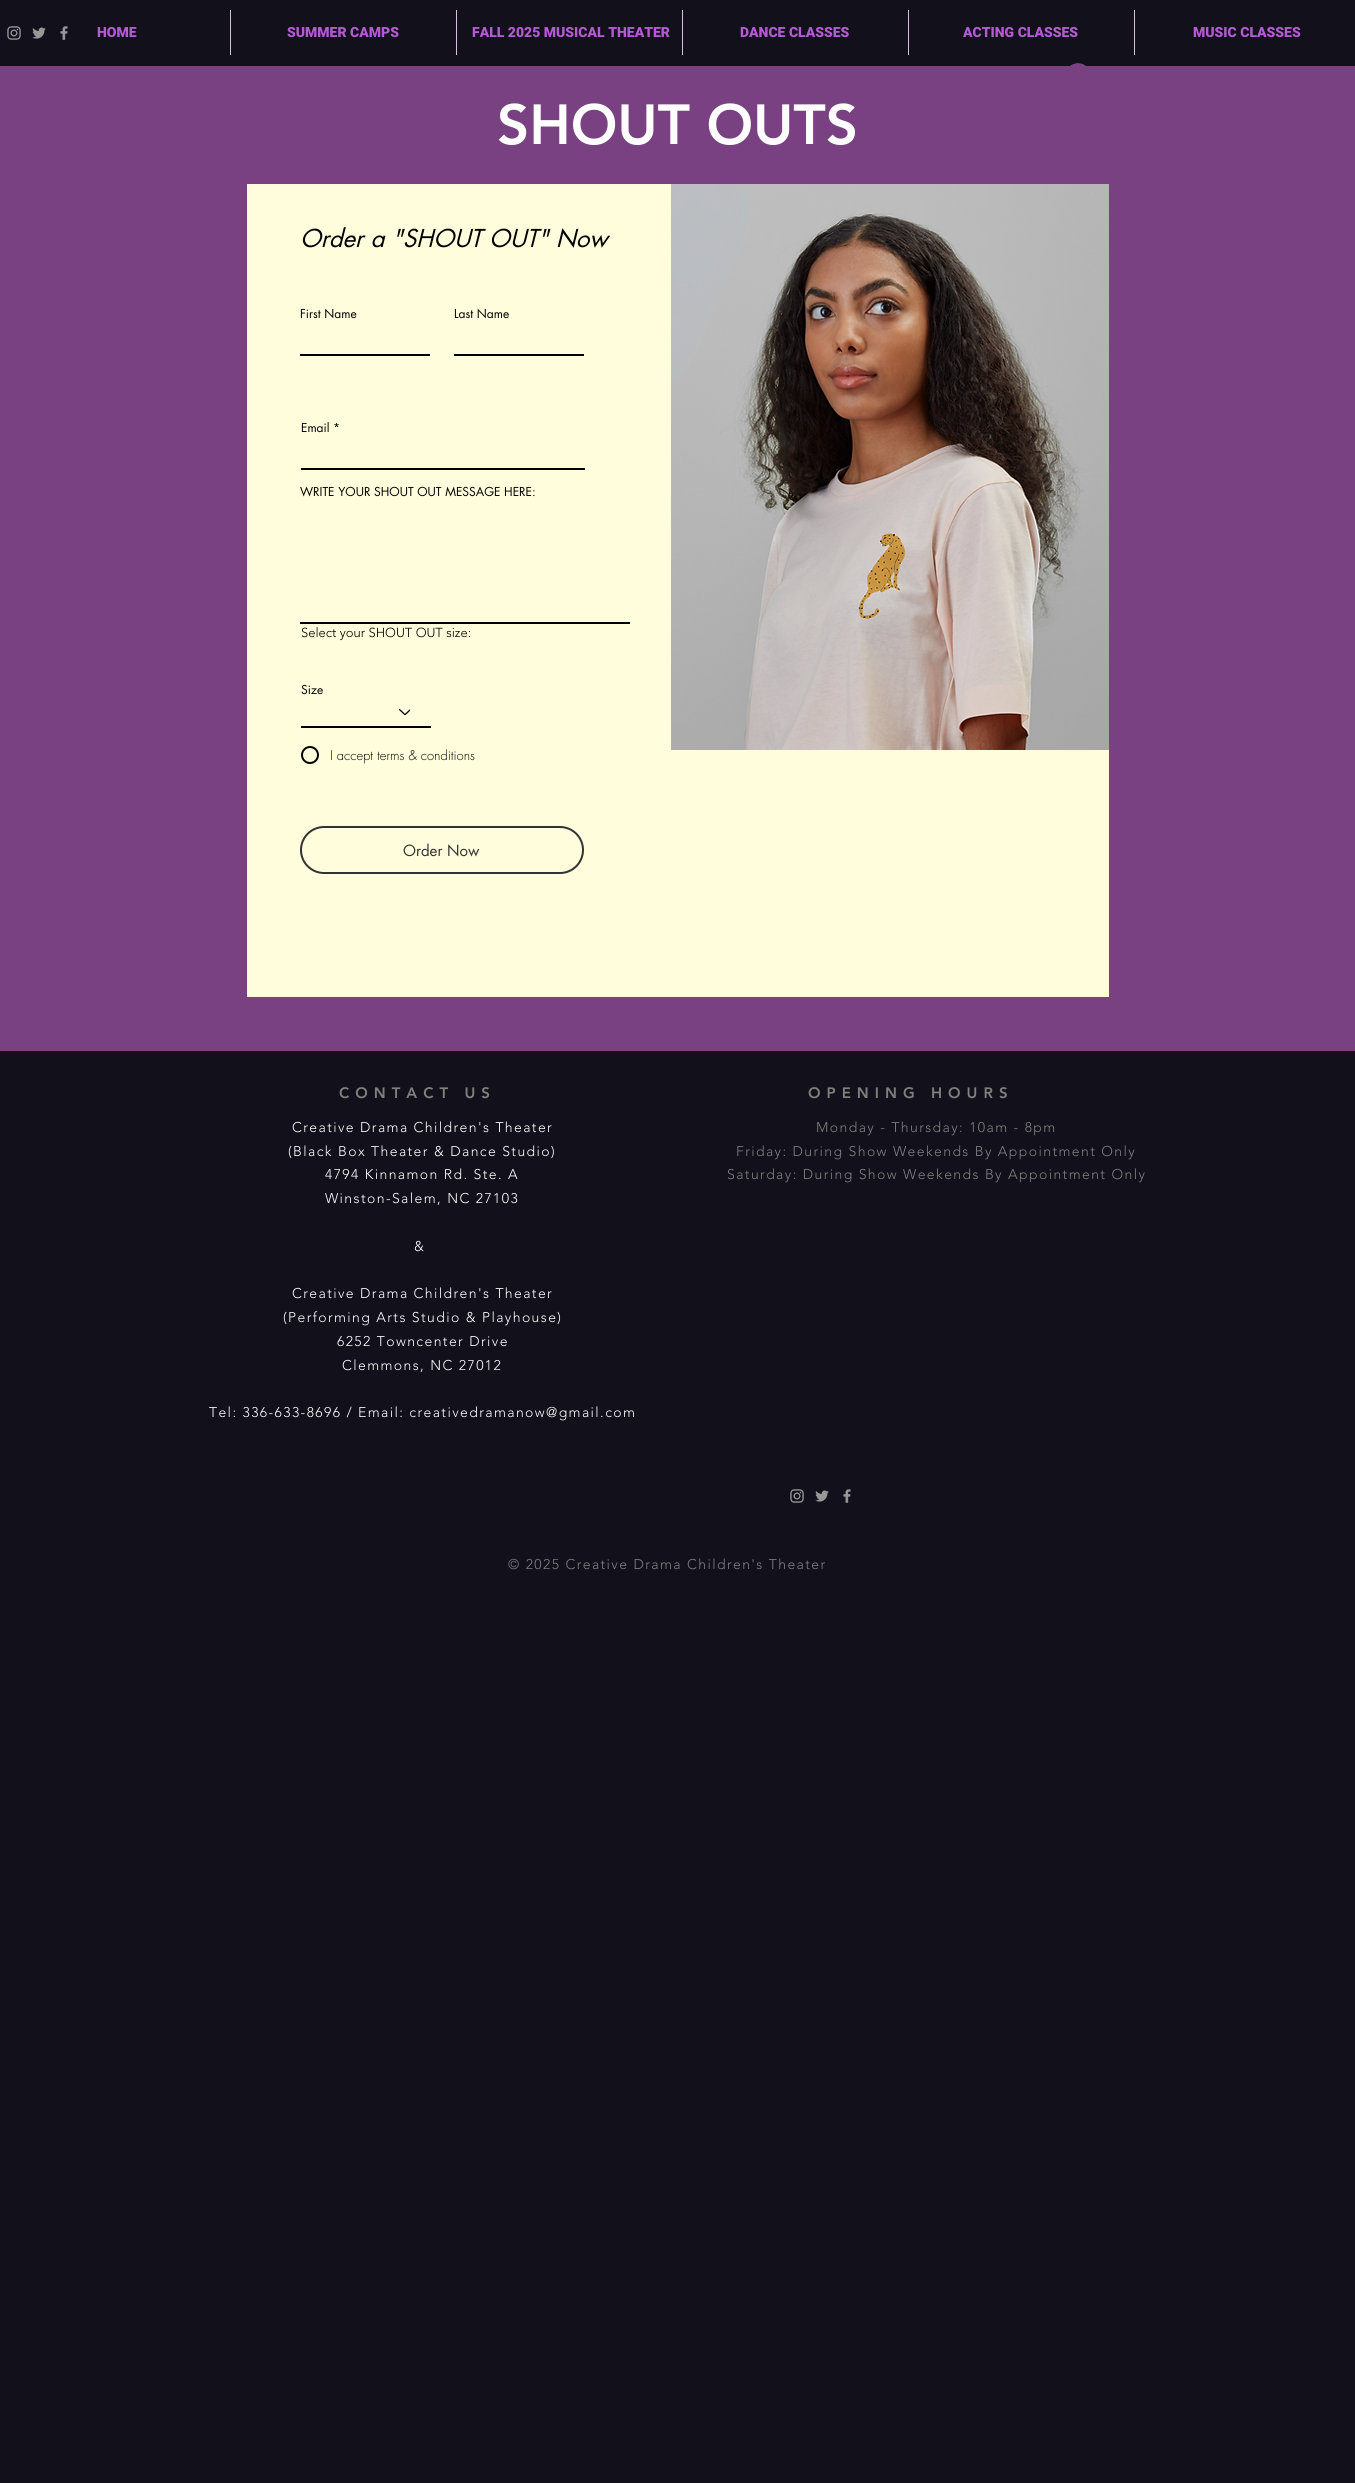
import math
import cairo

surface = cairo.ImageSurface(cairo.FORMAT_RGB24, 1355, 2483)
ctx = cairo.Context(surface)
options = cairo.FontOptions()
options.set_hint_metrics(cairo.HINT_METRICS_OFF)
options.set_hint_style(cairo.HINT_STYLE_NONE)
ctx.set_font_options(options)
ctx.set_miter_limit(4)


def spaced_text(x, y, s, letter, word):
    ctx.move_to(x, y)
    for ch in s:
        ctx.show_text(ch)
        ctx.rel_move_to(letter + word * (ch == ' '), 0)


def round_rect(x, y, w, h, r):
    ctx.new_sub_path()
    for i, (u, v) in enumerate([(x + w - r, y + h - r), (x + r, y + h - r), (x + r, y + r), (x + w - r, y + r)]):
        ctx.arc(u, v, r, i * math.pi / 2, (i + 1) * math.pi / 2)
    ctx.close_path()


def picture(path, x, y, w, h):
    ctx.save()
    ctx.set_source_surface(cairo.ImageSurface.create_from_png(path), x, y)
    ctx.rectangle(x, y, w, h)
    ctx.fill()
    ctx.restore()


ctx.set_source_rgb(0.071, 0.063, 0.106)
ctx.paint()
picture("img1.png", 7, 26, 14, 14)
picture("img2.png", 32, 27, 14, 12)
picture("img3.png", 60, 26, 8, 14)
ctx.select_font_face("Roboto Black")
ctx.set_font_size(14)
ctx.set_source_rgb(0.706, 0.353, 0.827)
ctx.move_to(97, 37)
ctx.show_text("HOME")
ctx.set_source_rgb(0.847, 0.741, 0.886)
ctx.rectangle(230, 10, 1, 45)
ctx.fill()
ctx.set_source_rgb(0.706, 0.353, 0.827)
ctx.move_to(287, 37)
ctx.show_text("SUMMER CAMPS")
ctx.set_source_rgb(0.847, 0.741, 0.886)
ctx.rectangle(456, 10, 1, 45)
ctx.fill()
ctx.set_source_rgb(0.706, 0.353, 0.827)
ctx.move_to(472, 37)
ctx.show_text("FALL 2025 MUSICAL THEATER")
ctx.set_source_rgb(0.847, 0.741, 0.886)
ctx.rectangle(682, 10, 1, 45)
ctx.fill()
ctx.set_source_rgb(0.706, 0.353, 0.827)
ctx.move_to(740, 37)
ctx.show_text("DANCE CLASSES")
ctx.set_source_rgb(0.847, 0.741, 0.886)
ctx.rectangle(908, 10, 1, 45)
ctx.fill()
ctx.set_source_rgb(0.706, 0.353, 0.827)
ctx.move_to(963, 37)
ctx.show_text("ACTING CLASSES")
ctx.set_source_rgb(0.847, 0.741, 0.886)
ctx.rectangle(1134, 10, 1, 45)
ctx.fill()
ctx.set_source_rgb(0.706, 0.353, 0.827)
ctx.move_to(1193, 37)
ctx.show_text("MUSIC CLASSES")
picture("img4.png", 1070, 63, 16, 3)
ctx.set_source_rgb(0.475, 0.255, 0.51)
ctx.rectangle(0, 66, 1355, 985)
ctx.fill()
ctx.select_font_face("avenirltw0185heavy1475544 Black")
ctx.set_font_size(56)
ctx.set_source_rgb(1, 1, 1)
ctx.move_to(497, 144)
ctx.show_text("SHOUT OUTS")
ctx.set_source_rgb(1, 0.992, 0.859)
ctx.rectangle(247, 184, 862, 813)
ctx.fill()
ctx.select_font_face("futura", cairo.FONT_SLANT_ITALIC)
ctx.set_font_size(24)
ctx.set_source_rgb(0, 0, 0)
ctx.move_to(300, 247)
ctx.show_text("Order a \"SHOUT OUT\" Now")
picture("img5.png", 671, 184, 438, 566)
ctx.select_font_face("futura")
ctx.set_font_size(12)
ctx.move_to(300, 318)
ctx.show_text("First Name")
ctx.rectangle(300, 354, 130, 2)
ctx.fill()
ctx.move_to(454, 318)
ctx.show_text("Last Name")
ctx.rectangle(454, 354, 130, 2)
ctx.fill()
ctx.move_to(301, 432)
ctx.show_text("Email *")
ctx.rectangle(301, 468, 284, 2)
ctx.fill()
ctx.move_to(300, 496)
ctx.show_text("WRITE YOUR SHOUT OUT MESSAGE HERE:")
ctx.rectangle(300, 622, 330, 2)
ctx.fill()
ctx.select_font_face("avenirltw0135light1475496 Light")
ctx.set_font_size(13)
ctx.move_to(301, 637)
ctx.show_text("Select your SHOUT OUT size:")
ctx.select_font_face("futura")
ctx.set_font_size(12)
ctx.move_to(301, 694)
ctx.show_text("Size")
picture("img6.png", 399, 709, 11, 6)
ctx.rectangle(301, 726, 130, 2)
ctx.fill()
ctx.arc(310, 755, 8, 0, 2 * math.pi)
ctx.stroke()
ctx.select_font_face("futura Light")
ctx.set_font_size(13)
ctx.move_to(330, 760)
ctx.show_text("I accept terms & conditions")
round_rect(301, 827, 282, 46, 23)
ctx.set_source_rgb(0.196, 0.196, 0.196)
ctx.stroke()
ctx.select_font_face("futura")
ctx.set_font_size(15)
ctx.move_to(403, 856)
ctx.show_text("Order Now")
ctx.select_font_face("avenirltw0185heavy1475544 Black")
ctx.set_source_rgb(0.502, 0.502, 0.502)
spaced_text(339, 1098, "CONTACT US", 6, 0)
spaced_text(808, 1098, "OPENING HOURS", 6, 0)
ctx.select_font_face("avenirltw0135light1475496 Light")
ctx.set_font_size(14)
ctx.set_source_rgb(1, 1, 1)
spaced_text(292, 1132, "Creative Drama Children's Theater", 1.4, 0)
spaced_text(288, 1156, "(Black Box Theater & Dance Studio)", 1.4, 0)
spaced_text(325, 1179, "4794 Kinnamon Rd. Ste. A", 1.4, 0)
spaced_text(325, 1203, "Winston-Salem, NC 27103", 1.4, 0)
spaced_text(414, 1251, "&", 1.4, 0)
spaced_text(292, 1298, "Creative Drama Children's Theater", 1.4, 0)
spaced_text(283, 1322, "(Performing Arts Studio & Playhouse)", 1.4, 0)
spaced_text(337, 1346, "6252 Towncenter Drive", 1.4, 0)
spaced_text(342, 1370, "Clemmons, NC 27012", 1.4, 0)
spaced_text(209, 1417, "Tel: 336-633-8696 / Email: creativedramanow@gmail.com", 1.4, 0)
ctx.set_source_rgb(0.502, 0.502, 0.502)
spaced_text(816, 1132, "Monday - Thursday: 10am - 8pm", 1.4, 0)
spaced_text(736, 1156, "Friday: During Show Weekends By Appointment Only", 1.4, 0)
spaced_text(727, 1179, "Saturday: During Show Weekends By Appointment Only", 1.4, 0)
picture("img1.png", 790, 1489, 14, 14)
picture("img2.png", 815, 1490, 14, 12)
picture("img3.png", 843, 1489, 8, 14)
spaced_text(508, 1569, "© 2025 Creative Drama Children's Theater", 1.4, 0)
surface.write_to_png("page.png")
